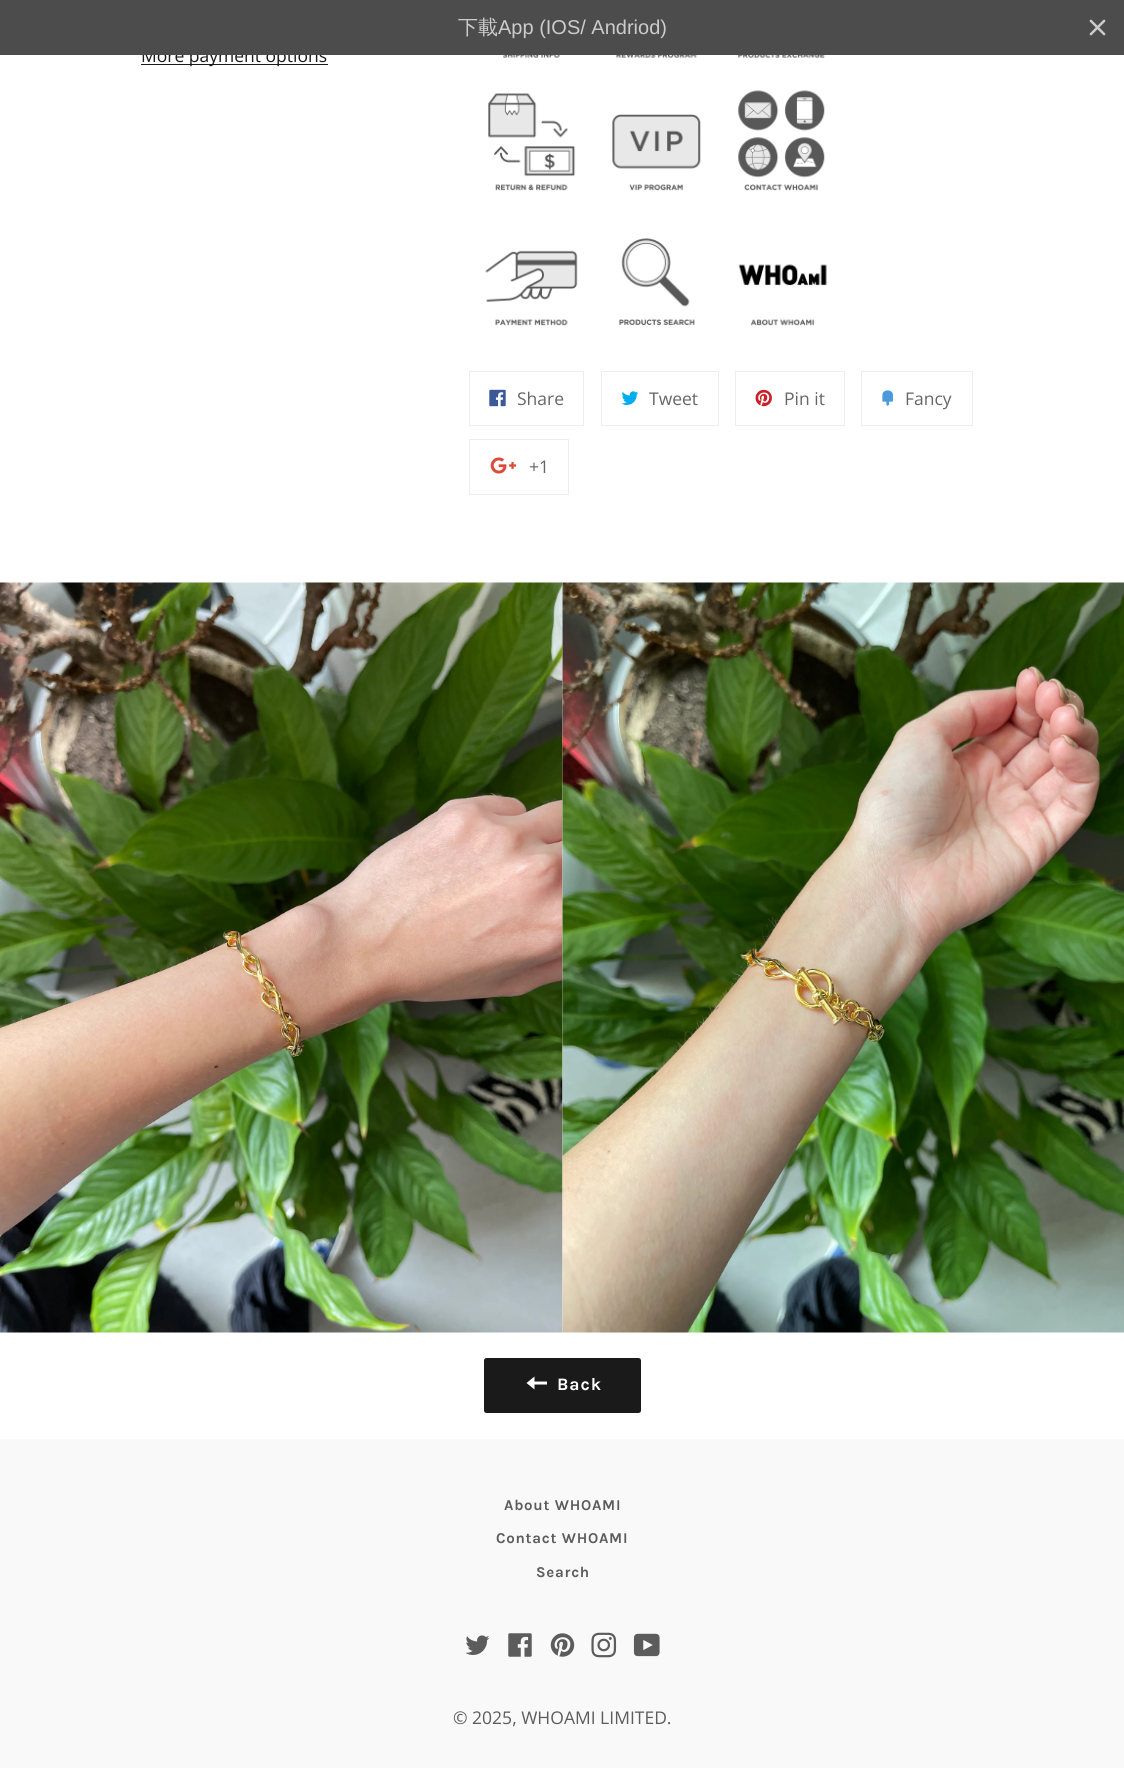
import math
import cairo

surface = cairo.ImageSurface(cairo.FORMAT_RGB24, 1124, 1768)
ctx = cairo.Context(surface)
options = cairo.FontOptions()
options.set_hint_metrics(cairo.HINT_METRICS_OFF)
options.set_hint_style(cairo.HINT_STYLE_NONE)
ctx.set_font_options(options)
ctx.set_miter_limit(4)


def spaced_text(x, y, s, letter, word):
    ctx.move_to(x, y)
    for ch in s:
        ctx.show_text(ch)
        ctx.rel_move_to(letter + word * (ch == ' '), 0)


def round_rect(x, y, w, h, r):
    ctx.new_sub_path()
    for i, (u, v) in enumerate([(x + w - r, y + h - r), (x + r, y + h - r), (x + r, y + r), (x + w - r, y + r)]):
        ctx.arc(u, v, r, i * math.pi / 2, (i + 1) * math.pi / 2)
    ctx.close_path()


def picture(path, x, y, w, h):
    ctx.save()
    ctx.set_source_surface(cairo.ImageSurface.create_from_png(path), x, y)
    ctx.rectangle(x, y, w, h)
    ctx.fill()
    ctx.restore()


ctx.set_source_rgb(1, 1, 1)
ctx.paint()
ctx.set_source_rgb(0.102, 0.102, 0.102)
ctx.rectangle(141, 64, 187, 1)
ctx.fill()
ctx.select_font_face("Open Sans")
ctx.set_font_size(17.5)
ctx.move_to(141, 62)
ctx.show_text("More payment options")
ctx.set_source_rgb(0.298, 0.298, 0.298)
ctx.rectangle(0, 0, 1124, 55)
ctx.fill()
ctx.select_font_face("WenQuanYi Zen Hei Medium")
ctx.set_font_size(20)
ctx.set_source_rgb(0.8, 0.8, 0.8)
ctx.move_to(458, 34)
ctx.show_text("下載")
ctx.select_font_face("Liberation Sans")
ctx.move_to(498, 34)
ctx.show_text("App (IOS/ Andriod)")
picture("img1.png", 1089, 19, 17, 17)
picture("img2.png", 487, 55, 89, 3)
picture("img3.png", 616, 55, 81, 3)
picture("img4.png", 736, 55, 91, 3)
picture("img5.png", 488, 93, 88, 98)
picture("img6.png", 612, 114, 89, 77)
picture("img7.png", 738, 90, 87, 101)
picture("img8.png", 485, 250, 93, 76)
picture("img9.png", 619, 238, 76, 87)
picture("img10.png", 738, 264, 89, 62)
ctx.rectangle(469.5, 371.5, 114, 54)
ctx.set_source_rgb(0.933, 0.933, 0.933)
ctx.set_line_width(1)
ctx.stroke()
picture("img11.png", 489, 389, 17, 18)
ctx.select_font_face("Open Sans")
ctx.set_font_size(17.5)
ctx.set_source_rgb(0.4, 0.4, 0.4)
ctx.move_to(517, 405)
ctx.show_text("Share")
ctx.rectangle(601.5, 371.5, 117, 54)
ctx.set_source_rgb(0.933, 0.933, 0.933)
ctx.stroke()
picture("img12.png", 621, 391, 18, 14)
ctx.set_source_rgb(0.4, 0.4, 0.4)
ctx.move_to(649, 405)
ctx.show_text("Tweet")
ctx.rectangle(735.5, 371.5, 109, 54)
ctx.set_source_rgb(0.933, 0.933, 0.933)
ctx.stroke()
picture("img13.png", 755, 389, 17, 18)
ctx.set_source_rgb(0.4, 0.4, 0.4)
ctx.move_to(784, 405)
ctx.show_text("Pin it")
ctx.rectangle(861.5, 371.5, 111, 54)
ctx.set_source_rgb(0.933, 0.933, 0.933)
ctx.stroke()
picture("img14.png", 882, 390, 11, 16)
ctx.set_source_rgb(0.4, 0.4, 0.4)
ctx.move_to(905, 405)
ctx.show_text("Fancy")
ctx.rectangle(469.5, 439.5, 99, 55)
ctx.set_source_rgb(0.933, 0.933, 0.933)
ctx.stroke()
picture("img15.png", 490, 457, 26, 17)
ctx.set_source_rgb(0.4, 0.4, 0.4)
ctx.move_to(529, 473)
ctx.show_text("+1")
picture("img16.png", 0, 582, 563, 751)
picture("img17.png", 562, 582, 562, 751)
ctx.set_source_rgb(0.102, 0.102, 0.102)
round_rect(484, 1358, 157, 55, 2.5)
ctx.fill()
ctx.set_source_rgb(1, 1, 1)
ctx.new_path()
ctx.move_to(534.5, 1381.5)
ctx.line_to(534.5, 1376.5)
ctx.line_to(526.5, 1383)
ctx.line_to(534.5, 1389.5)
ctx.line_to(534.5, 1384.5)
ctx.line_to(547, 1384.5)
ctx.line_to(547, 1381.5)
ctx.close_path()
ctx.fill()
ctx.select_font_face("Karla", cairo.FONT_SLANT_NORMAL, cairo.FONT_WEIGHT_BOLD)
spaced_text(557, 1390, "Back", 1, 0)
ctx.set_source_rgb(0.976, 0.976, 0.976)
ctx.rectangle(0, 1439, 1124, 329)
ctx.fill()
ctx.set_font_size(15)
ctx.set_source_rgb(0.361, 0.361, 0.361)
spaced_text(504, 1510, "About WHOAMI", 0.75, 0)
spaced_text(496, 1543, "Contact WHOAMI", 0.75, 0)
spaced_text(536, 1577, "Search", 0.75, 0)
picture("img18.png", 465, 1635, 25, 20)
picture("img19.png", 508, 1633, 24, 24)
picture("img20.png", 550, 1633, 25, 24)
picture("img21.png", 591, 1632, 26, 26)
picture("img22.png", 633, 1633, 27, 24)
ctx.select_font_face("Open Sans")
ctx.set_font_size(17.5)
ctx.move_to(453, 1724)
ctx.show_text("© 2025, WHOAMI LIMITED.")
surface.write_to_png("page.png")
